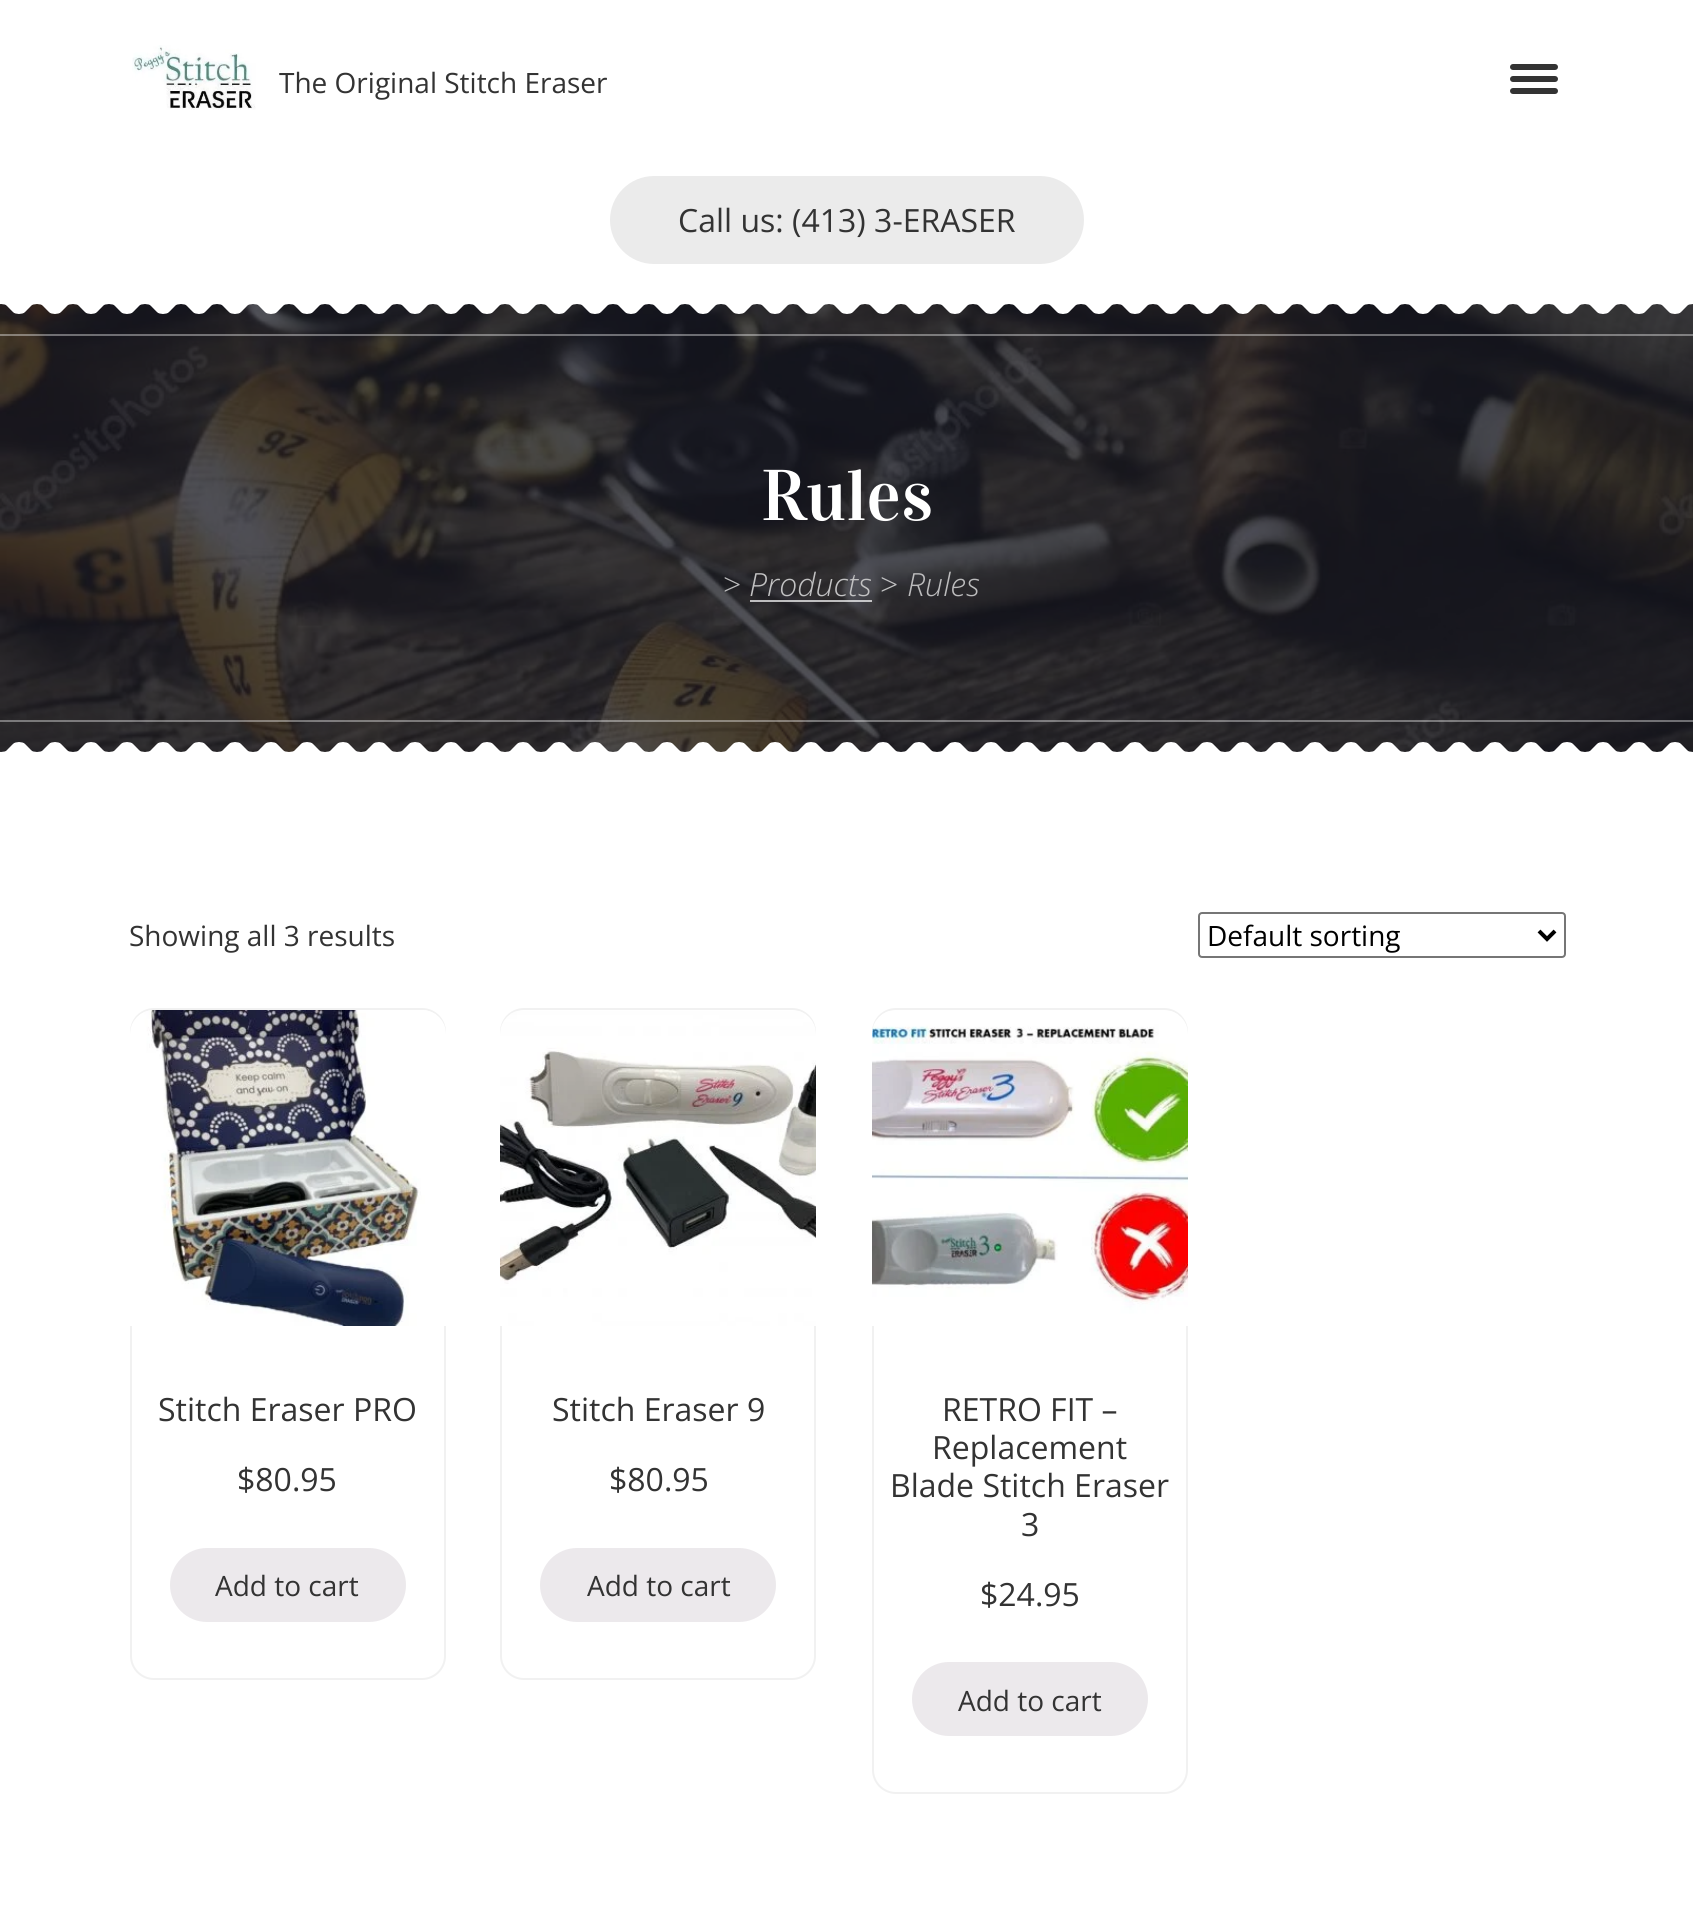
import math
import cairo

surface = cairo.ImageSurface(cairo.FORMAT_RGB24, 1693, 1931)
ctx = cairo.Context(surface)
options = cairo.FontOptions()
options.set_hint_metrics(cairo.HINT_METRICS_OFF)
options.set_hint_style(cairo.HINT_STYLE_NONE)
ctx.set_font_options(options)
ctx.set_miter_limit(4)


def round_rect(x, y, w, h, r):
    ctx.new_sub_path()
    for i, (u, v) in enumerate([(x + w - r, y + h - r), (x + r, y + h - r), (x + r, y + r), (x + w - r, y + r)]):
        ctx.arc(u, v, r, i * math.pi / 2, (i + 1) * math.pi / 2)
    ctx.close_path()


def picture(path, x, y, w, h):
    ctx.save()
    ctx.set_source_surface(cairo.ImageSurface.create_from_png(path), x, y)
    ctx.rectangle(x, y, w, h)
    ctx.fill()
    ctx.restore()


ctx.set_source_rgb(1, 1, 1)
ctx.paint()
picture("img1.png", 132, 45, 124, 65)
ctx.select_font_face("Open Sans")
ctx.set_font_size(28)
ctx.set_source_rgb(0.2, 0.2, 0.2)
ctx.move_to(279, 93)
ctx.show_text("The Original Stitch Eraser")
round_rect(1510, 64, 48, 6, 3)
ctx.fill()
round_rect(1510, 76, 48, 6, 3)
ctx.fill()
round_rect(1510, 88, 48, 6, 3)
ctx.fill()
ctx.set_source_rgb(0.918, 0.918, 0.918)
round_rect(610, 176, 474, 88, 44)
ctx.fill()
ctx.set_font_size(32)
ctx.set_source_rgb(0.2, 0.2, 0.2)
ctx.move_to(678, 232)
ctx.show_text("Call us: (413) 3-ERASER")
picture("img2.png", 0, 304, 1693, 448)
picture("img3.png", 0, 304, 1693, 10)
ctx.set_source_rgba(1, 1, 1, 0.38)
ctx.rectangle(0, 334, 1693, 2)
ctx.fill()
ctx.select_font_face("Vidaloka")
ctx.set_font_size(72)
ctx.set_source_rgb(1, 1, 1)
ctx.move_to(761, 520)
ctx.show_text("Rules")
ctx.select_font_face("Open Sans Light")
ctx.set_font_size(32)
ctx.set_source_rgb(0.737, 0.737, 0.741)
ctx.move_to(723, 596)
ctx.show_text(">")
ctx.set_source_rgba(1, 1, 1, 0.7)
ctx.rectangle(750, 600, 122, 2)
ctx.fill()
ctx.select_font_face("Open Sans Light", cairo.FONT_SLANT_ITALIC)
ctx.set_source_rgb(0.761, 0.761, 0.765)
ctx.move_to(749, 596)
ctx.show_text("Products")
ctx.select_font_face("Open Sans Light")
ctx.move_to(880, 596)
ctx.show_text(">")
ctx.select_font_face("Open Sans Light", cairo.FONT_SLANT_ITALIC)
ctx.set_source_rgb(0.737, 0.737, 0.741)
ctx.move_to(907, 596)
ctx.show_text("Rules")
picture("img4.png", 0, 742, 1693, 10)
ctx.set_source_rgba(1, 1, 1, 0.38)
ctx.rectangle(0, 720, 1693, 2)
ctx.fill()
ctx.select_font_face("Open Sans")
ctx.set_font_size(28)
ctx.set_source_rgb(0.2, 0.2, 0.2)
ctx.move_to(129, 946)
ctx.show_text("Showing all 3 results")
round_rect(1199, 913, 366, 44, 3)
ctx.set_source_rgb(0.463, 0.463, 0.463)
ctx.stroke()
ctx.new_path()
ctx.move_to(1539, 931)
ctx.line_to(1547, 939)
ctx.line_to(1555, 931)
ctx.set_source_rgb(0, 0, 0)
ctx.set_line_width(4)
ctx.stroke()
ctx.move_to(1207, 946)
ctx.show_text("Default sorting")
round_rect(131, 1009, 314, 670, 23)
ctx.set_source_rgb(0.945, 0.945, 0.945)
ctx.set_line_width(2)
ctx.stroke()
picture("img5.png", 130, 1010, 316, 316)
ctx.set_font_size(32)
ctx.set_source_rgb(0.2, 0.2, 0.2)
ctx.move_to(158, 1421)
ctx.show_text("Stitch Eraser PRO")
ctx.move_to(237, 1491)
ctx.show_text("$80.95")
ctx.set_source_rgb(0.922, 0.914, 0.922)
round_rect(170, 1548, 236, 74, 37)
ctx.fill()
ctx.set_font_size(28)
ctx.set_source_rgb(0.2, 0.2, 0.2)
ctx.move_to(215, 1596)
ctx.show_text("Add to cart")
round_rect(501, 1009, 314, 670, 23)
ctx.set_source_rgb(0.945, 0.945, 0.945)
ctx.stroke()
picture("img6.png", 500, 1011, 316, 315)
ctx.set_font_size(32)
ctx.set_source_rgb(0.2, 0.2, 0.2)
ctx.move_to(552, 1421)
ctx.show_text("Stitch Eraser 9")
ctx.move_to(609, 1491)
ctx.show_text("$80.95")
ctx.set_source_rgb(0.922, 0.914, 0.922)
round_rect(540, 1548, 236, 74, 37)
ctx.fill()
ctx.set_font_size(28)
ctx.set_source_rgb(0.2, 0.2, 0.2)
ctx.move_to(587, 1596)
ctx.show_text("Add to cart")
round_rect(873, 1009, 314, 784, 23)
ctx.set_source_rgb(0.945, 0.945, 0.945)
ctx.stroke()
picture("img7.png", 872, 1011, 316, 315)
ctx.set_font_size(32)
ctx.set_source_rgb(0.2, 0.2, 0.2)
ctx.move_to(942, 1421)
ctx.show_text("RETRO FIT –")
ctx.move_to(932, 1459)
ctx.show_text("Replacement")
ctx.move_to(890, 1497)
ctx.show_text("Blade Stitch Eraser")
ctx.move_to(1021, 1536)
ctx.show_text("3")
ctx.move_to(980, 1606)
ctx.show_text("$24.95")
ctx.set_source_rgb(0.922, 0.914, 0.922)
round_rect(912, 1662, 236, 74, 37)
ctx.fill()
ctx.set_font_size(28)
ctx.set_source_rgb(0.2, 0.2, 0.2)
ctx.move_to(958, 1711)
ctx.show_text("Add to cart")
surface.write_to_png("page.png")
